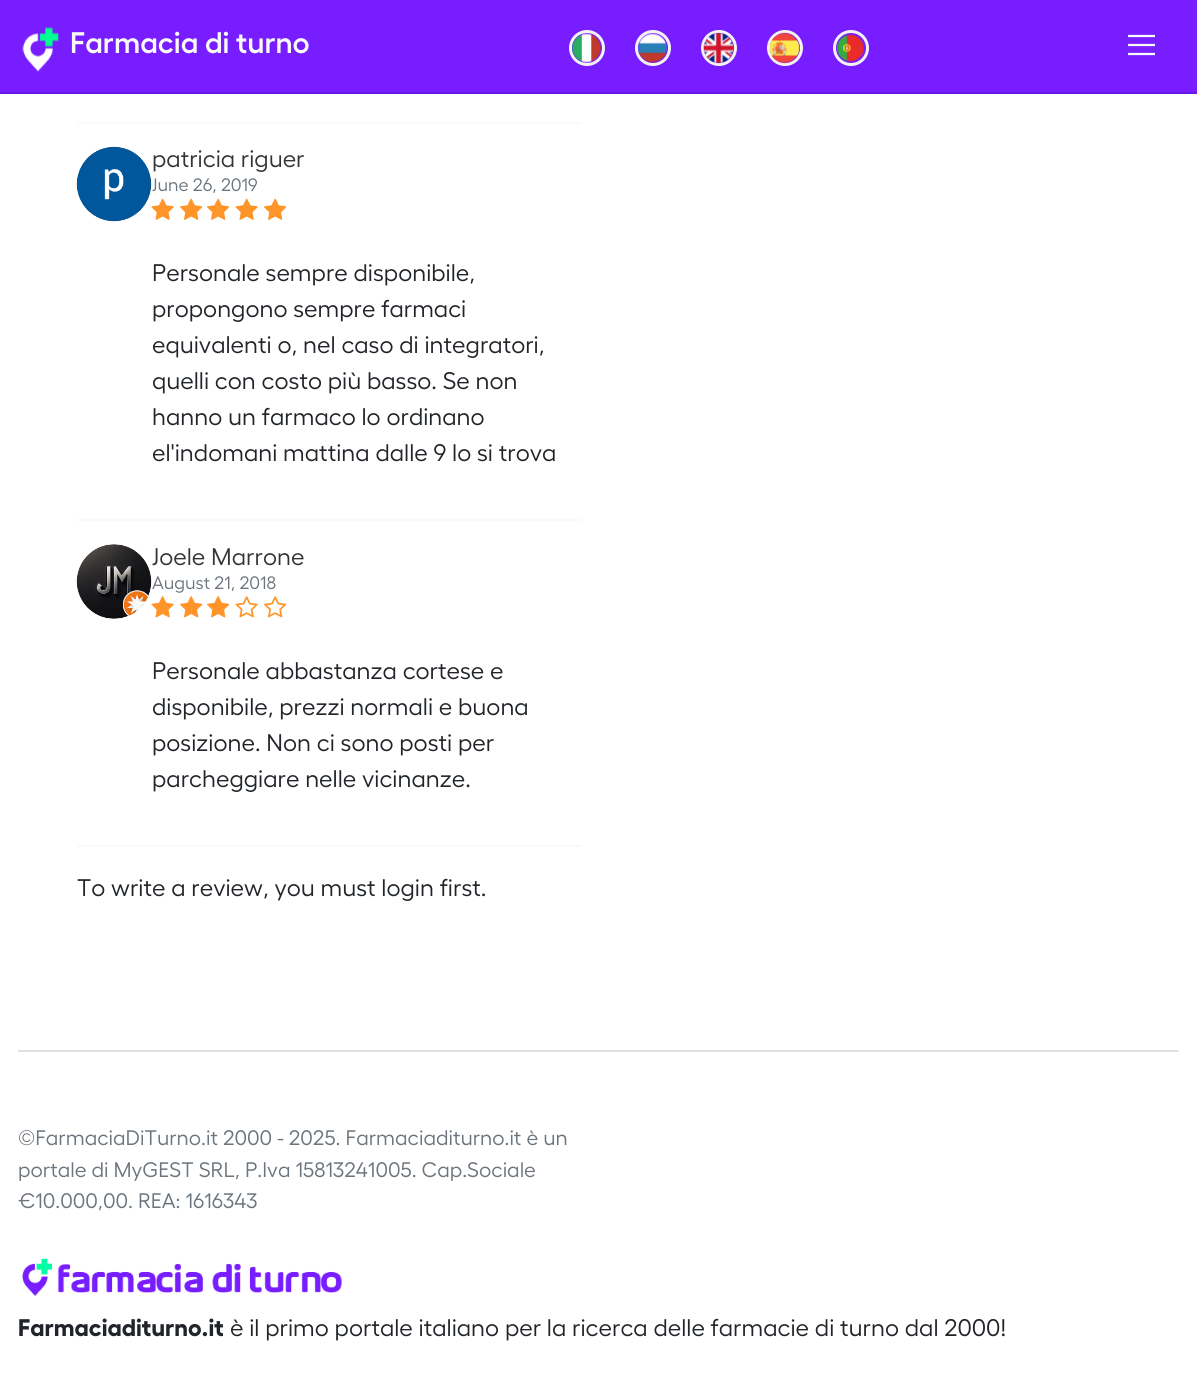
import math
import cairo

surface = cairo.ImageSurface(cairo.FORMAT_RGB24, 1197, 1376)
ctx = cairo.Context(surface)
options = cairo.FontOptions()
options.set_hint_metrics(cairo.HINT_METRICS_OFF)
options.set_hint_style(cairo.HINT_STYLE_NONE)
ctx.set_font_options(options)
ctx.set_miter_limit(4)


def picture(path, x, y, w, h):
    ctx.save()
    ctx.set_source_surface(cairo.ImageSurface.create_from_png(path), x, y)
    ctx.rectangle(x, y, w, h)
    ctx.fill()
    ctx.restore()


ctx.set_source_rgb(1, 1, 1)
ctx.paint()
ctx.set_source_rgb(0.467, 0.114, 1)
ctx.rectangle(0, 0, 1197, 92)
ctx.fill()
ctx.set_source_rgb(0.412, 0.094, 0.89)
ctx.rectangle(0, 92, 1197, 2)
ctx.fill()
picture("img1.png", 22, 27, 37, 45)
ctx.select_font_face("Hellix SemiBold")
ctx.set_font_size(29.75)
ctx.set_source_rgb(0.973, 0.973, 0.973)
ctx.move_to(70, 53)
ctx.show_text("Farmacia di turno")
ctx.new_path()
ctx.arc(587, 48, 16.5, 0, 2 * math.pi)
ctx.set_source_rgb(0.953, 0.953, 0.953)
ctx.set_line_width(3)
ctx.stroke()
picture("img2.png", 572, 33, 29, 30)
ctx.arc(653, 48, 16.5, 0, 2 * math.pi)
ctx.stroke()
picture("img3.png", 638, 33, 29, 30)
ctx.arc(719, 48, 16.5, 0, 2 * math.pi)
ctx.stroke()
picture("img4.png", 703, 32, 31, 32)
ctx.arc(785, 48, 16.5, 0, 2 * math.pi)
ctx.stroke()
picture("img5.png", 769, 32, 31, 32)
ctx.arc(851, 48, 16.5, 0, 2 * math.pi)
ctx.stroke()
picture("img6.png", 837, 34, 27, 28)
picture("img7.png", 1128, 34, 27, 22)
ctx.set_source_rgb(0.969, 0.973, 0.976)
ctx.rectangle(77, 122, 504, 2)
ctx.fill()
picture("img8.png", 76, 146, 76, 76)
ctx.select_font_face("Hellix")
ctx.set_font_size(24)
ctx.set_source_rgb(0.196, 0.208, 0.216)
ctx.move_to(152, 167)
ctx.show_text("patricia riguer")
ctx.set_font_size(18)
ctx.set_source_rgb(0.424, 0.459, 0.49)
ctx.move_to(152, 191)
ctx.show_text("June 26, 2019")
picture("img9.png", 151, 198, 23, 22)
picture("img10.png", 180, 198, 23, 22)
picture("img10.png", 207, 198, 23, 22)
picture("img9.png", 235, 198, 23, 22)
picture("img10.png", 264, 198, 23, 22)
ctx.set_font_size(24)
ctx.set_source_rgb(0.129, 0.145, 0.161)
ctx.move_to(152, 281)
ctx.show_text("Personale sempre disponibile,")
ctx.move_to(152, 317)
ctx.show_text("propongono sempre farmaci")
ctx.move_to(152, 353)
ctx.show_text("equivalenti o, nel caso di integratori,")
ctx.move_to(152, 389)
ctx.show_text("quelli con costo più basso. Se non")
ctx.move_to(152, 425)
ctx.show_text("hanno un farmaco lo ordinano")
ctx.move_to(152, 461)
ctx.show_text("el'indomani mattina dalle 9 lo si trova")
ctx.set_source_rgb(0.969, 0.973, 0.976)
ctx.rectangle(77, 519, 504, 2)
ctx.fill()
picture("img11.png", 76, 544, 76, 75)
ctx.set_source_rgb(0.196, 0.208, 0.216)
ctx.move_to(152, 565)
ctx.show_text("Joele Marrone")
ctx.set_font_size(18)
ctx.set_source_rgb(0.424, 0.459, 0.49)
ctx.move_to(152, 589)
ctx.show_text("August 21, 2018")
picture("img12.png", 151, 596, 23, 22)
picture("img13.png", 180, 596, 23, 22)
picture("img13.png", 207, 596, 23, 22)
picture("img14.png", 235, 596, 23, 22)
picture("img15.png", 264, 596, 23, 22)
ctx.set_font_size(24)
ctx.set_source_rgb(0.129, 0.145, 0.161)
ctx.move_to(152, 679)
ctx.show_text("Personale abbastanza cortese e")
ctx.move_to(152, 715)
ctx.show_text("disponibile, prezzi normali e buona")
ctx.move_to(152, 751)
ctx.show_text("posizione. Non ci sono posti per")
ctx.move_to(152, 787)
ctx.show_text("parcheggiare nelle vicinanze.")
ctx.set_source_rgb(0.969, 0.973, 0.976)
ctx.rectangle(77, 845, 504, 2)
ctx.fill()
ctx.set_source_rgb(0.129, 0.145, 0.161)
ctx.move_to(77, 896)
ctx.show_text("To write a review, you must login first.")
ctx.set_source_rgb(0.871, 0.886, 0.902)
ctx.rectangle(18, 1050, 1161, 2)
ctx.fill()
ctx.set_font_size(21)
ctx.set_source_rgb(0.424, 0.459, 0.49)
ctx.move_to(18, 1145)
ctx.show_text("©FarmaciaDiTurno.it 2000 - 2025. Farmaciaditurno.it è un")
ctx.move_to(18, 1177)
ctx.show_text("portale di MyGEST SRL, P.Iva 15813241005. Cap.Sociale")
ctx.move_to(18, 1208)
ctx.show_text("€10.000,00. REA: 1616343")
picture("img16.png", 22, 1258, 320, 38)
ctx.select_font_face("Hellix", cairo.FONT_SLANT_NORMAL, cairo.FONT_WEIGHT_BOLD)
ctx.set_font_size(24)
ctx.set_source_rgb(0.129, 0.145, 0.161)
ctx.move_to(18, 1336)
ctx.show_text("Farmaciaditurno.it")
ctx.select_font_face("Hellix")
ctx.move_to(230, 1336)
ctx.show_text("è il primo portale italiano per la ricerca delle farmacie di turno dal 2000!")
surface.write_to_png("page.png")
